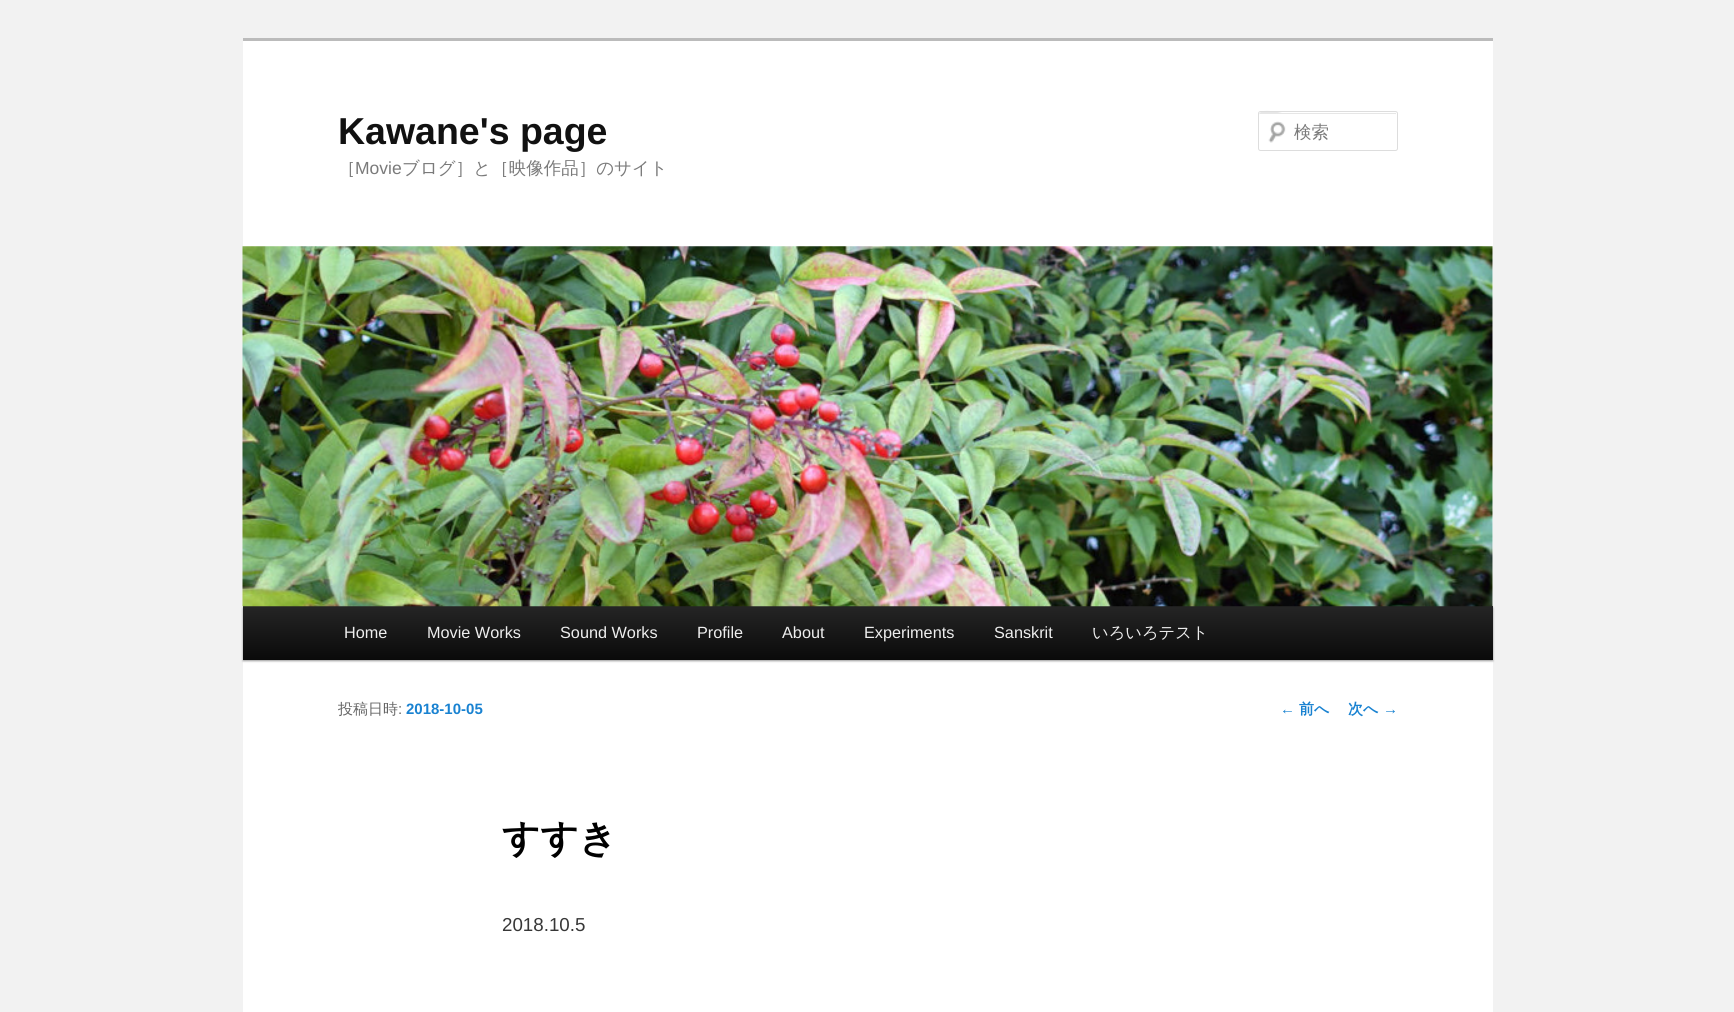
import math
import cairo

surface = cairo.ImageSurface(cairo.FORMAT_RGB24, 1734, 1012)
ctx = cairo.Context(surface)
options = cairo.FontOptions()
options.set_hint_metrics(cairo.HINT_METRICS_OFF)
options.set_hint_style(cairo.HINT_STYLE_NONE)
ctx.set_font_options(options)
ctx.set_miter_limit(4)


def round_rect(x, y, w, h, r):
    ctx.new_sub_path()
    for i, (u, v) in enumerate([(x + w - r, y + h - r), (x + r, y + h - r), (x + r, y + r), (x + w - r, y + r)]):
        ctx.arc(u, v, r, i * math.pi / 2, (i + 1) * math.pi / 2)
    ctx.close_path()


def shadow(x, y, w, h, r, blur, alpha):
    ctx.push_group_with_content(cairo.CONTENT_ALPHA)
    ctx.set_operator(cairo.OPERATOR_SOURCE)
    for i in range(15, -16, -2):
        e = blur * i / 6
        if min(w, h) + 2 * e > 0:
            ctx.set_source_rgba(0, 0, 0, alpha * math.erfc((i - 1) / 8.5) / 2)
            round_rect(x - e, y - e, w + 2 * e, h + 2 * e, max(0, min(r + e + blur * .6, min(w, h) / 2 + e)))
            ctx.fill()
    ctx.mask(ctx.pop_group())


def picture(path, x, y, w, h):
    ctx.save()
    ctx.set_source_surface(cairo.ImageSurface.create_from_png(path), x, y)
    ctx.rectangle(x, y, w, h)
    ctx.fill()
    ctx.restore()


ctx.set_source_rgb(0.949, 0.949, 0.949)
ctx.paint()
ctx.set_source_rgb(1, 1, 1)
ctx.rectangle(243, 41, 1250, 971)
ctx.fill()
ctx.set_source_rgb(0.733, 0.733, 0.733)
ctx.rectangle(243, 38, 1250, 3)
ctx.fill()
ctx.select_font_face("Liberation Sans", cairo.FONT_SLANT_NORMAL, cairo.FONT_WEIGHT_BOLD)
ctx.set_font_size(37.5)
ctx.set_source_rgb(0.067, 0.067, 0.067)
ctx.move_to(338, 144)
ctx.show_text("Kawane's page")
ctx.select_font_face("WenQuanYi Zen Hei Medium")
ctx.set_font_size(17.5)
ctx.set_source_rgb(0.478, 0.478, 0.478)
ctx.move_to(338, 174)
ctx.show_text("［")
ctx.select_font_face("Liberation Sans")
ctx.move_to(355, 174)
ctx.show_text("Movie")
ctx.select_font_face("WenQuanYi Zen Hei Medium")
ctx.move_to(402, 174)
ctx.show_text("ブログ］と［映像作品］のサイト")
picture("img1.png", 1268, 121, 18, 22)
ctx.set_source_rgb(0.902, 0.902, 0.902)
ctx.new_path()
ctx.move_to(1260, 114)
ctx.line_to(1395, 114)
ctx.curve_to(1396, 114, 1396, 114, 1396, 115)
ctx.line_to(1396, 113)
ctx.line_to(1282, 113)
ctx.curve_to(1282, 113, 1259, 107, 1259, 115)
ctx.curve_to(1259, 114, 1259, 114, 1260, 114)
ctx.close_path()
ctx.fill()
round_rect(1258.5, 111.5, 139, 39, 2)
ctx.set_source_rgb(0.867, 0.867, 0.867)
ctx.set_line_width(1)
ctx.stroke()
ctx.set_source_rgb(0.478, 0.478, 0.478)
ctx.move_to(1294, 138)
ctx.show_text("検索")
ctx.set_source_rgb(0, 0, 0)
shadow(243, 608, 1250, 53, 0, 1, 0.4)
gradient = cairo.LinearGradient(868, 606, 868, 660)
gradient.add_color_stop_rgba(0, 0.145, 0.145, 0.145, 1)
gradient.add_color_stop_rgba(1, 0.039, 0.039, 0.039, 1)
ctx.set_source(gradient)
ctx.rectangle(243, 606, 1250, 54)
ctx.fill()
picture("img2.png", 242, 246, 1251, 361)
ctx.select_font_face("Liberation Sans")
ctx.set_font_size(16.25)
ctx.set_source_rgb(0.933, 0.933, 0.933)
ctx.move_to(344, 638)
ctx.show_text("Home")
ctx.move_to(427, 638)
ctx.show_text("Movie Works")
ctx.move_to(560, 638)
ctx.show_text("Sound Works")
ctx.move_to(697, 638)
ctx.show_text("Profile")
ctx.move_to(782, 638)
ctx.show_text("About")
ctx.move_to(864, 638)
ctx.show_text("Experiments")
ctx.move_to(994, 638)
ctx.show_text("Sanskrit")
ctx.select_font_face("WenQuanYi Zen Hei Medium")
ctx.move_to(1092, 638)
ctx.show_text("いろいろテスト")
ctx.set_font_size(15)
ctx.set_source_rgb(0.4, 0.4, 0.4)
ctx.move_to(338, 714)
ctx.show_text("投稿日時")
ctx.select_font_face("Liberation Sans")
ctx.move_to(398, 714)
ctx.show_text(":")
ctx.select_font_face("Liberation Sans", cairo.FONT_SLANT_NORMAL, cairo.FONT_WEIGHT_BOLD)
ctx.set_source_rgb(0.098, 0.51, 0.82)
ctx.move_to(406, 714)
ctx.show_text("2018-10-05")
ctx.select_font_face("WenQuanYi Zen Hei", cairo.FONT_SLANT_NORMAL, cairo.FONT_WEIGHT_BOLD)
ctx.set_font_size(37.5)
ctx.set_source_rgb(0, 0, 0)
ctx.move_to(502, 851)
ctx.show_text("すすき")
ctx.select_font_face("Liberation Sans")
ctx.set_font_size(18.75)
ctx.set_source_rgb(0.216, 0.216, 0.216)
ctx.move_to(502, 931)
ctx.show_text("2018.10.5")
ctx.set_font_size(15)
ctx.set_source_rgb(0.098, 0.51, 0.82)
ctx.move_to(1280, 714)
ctx.show_text("←")
ctx.select_font_face("WenQuanYi Zen Hei", cairo.FONT_SLANT_NORMAL, cairo.FONT_WEIGHT_BOLD)
ctx.move_to(1299, 714)
ctx.show_text("前へ")
ctx.move_to(1348, 714)
ctx.show_text("次へ")
ctx.select_font_face("Liberation Sans")
ctx.move_to(1383, 714)
ctx.show_text("→")
surface.write_to_png("page.png")
